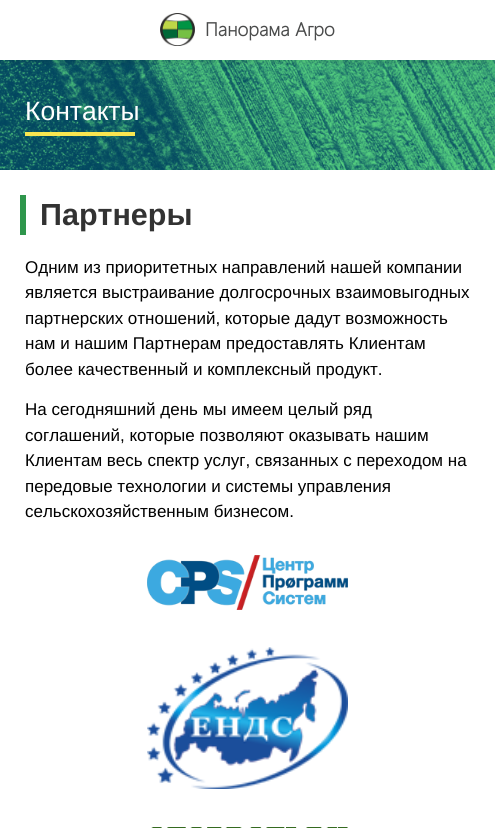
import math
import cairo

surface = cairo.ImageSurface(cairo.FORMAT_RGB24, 495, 828)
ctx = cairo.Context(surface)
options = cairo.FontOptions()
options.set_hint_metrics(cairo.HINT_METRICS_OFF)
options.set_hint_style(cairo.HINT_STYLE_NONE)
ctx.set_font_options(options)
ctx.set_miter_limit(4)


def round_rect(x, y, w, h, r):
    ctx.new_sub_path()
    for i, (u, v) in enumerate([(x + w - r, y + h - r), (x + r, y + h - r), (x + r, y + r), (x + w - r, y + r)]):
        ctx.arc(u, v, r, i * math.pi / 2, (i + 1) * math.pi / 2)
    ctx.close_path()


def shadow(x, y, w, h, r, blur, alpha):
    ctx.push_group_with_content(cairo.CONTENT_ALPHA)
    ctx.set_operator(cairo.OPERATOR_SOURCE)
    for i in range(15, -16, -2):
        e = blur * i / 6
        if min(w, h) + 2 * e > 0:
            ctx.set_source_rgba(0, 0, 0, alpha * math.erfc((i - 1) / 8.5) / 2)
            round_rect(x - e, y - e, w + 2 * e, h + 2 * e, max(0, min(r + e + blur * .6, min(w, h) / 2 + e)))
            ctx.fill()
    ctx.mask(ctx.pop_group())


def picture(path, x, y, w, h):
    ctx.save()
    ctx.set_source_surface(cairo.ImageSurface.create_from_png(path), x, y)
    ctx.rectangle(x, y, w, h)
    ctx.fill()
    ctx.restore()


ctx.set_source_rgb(1, 1, 1)
ctx.paint()
picture("img2.png", 0, 60, 495, 110)
ctx.save()
ctx.rectangle(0, 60, 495, 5)
ctx.clip()
ctx.set_source_rgb(0, 0, 0)
shadow(0, 2, 495, 60, 0, 4, 0.1)
ctx.restore()
picture("img1.png", 160, 13, 35, 33)
ctx.select_font_face("Segoe UI", cairo.FONT_SLANT_NORMAL, cairo.FONT_WEIGHT_BOLD)
ctx.set_font_size(19)
ctx.set_source_rgb(0.29, 0.294, 0.294)
ctx.move_to(205, 36)
ctx.show_text("Панорама Агро")
ctx.select_font_face("Liberation Sans")
ctx.set_font_size(26.5)
ctx.set_source_rgb(1, 1, 1)
ctx.move_to(25, 120)
ctx.show_text("Контакты")
ctx.set_source_rgb(0.973, 0.902, 0.314)
ctx.rectangle(25, 132, 110, 4)
ctx.fill()
ctx.set_source_rgb(0.18, 0.588, 0.298)
ctx.rectangle(20, 195, 6, 40)
ctx.fill()
ctx.select_font_face("Liberation Sans", cairo.FONT_SLANT_NORMAL, cairo.FONT_WEIGHT_BOLD)
ctx.set_font_size(30.5)
ctx.set_source_rgb(0.196, 0.196, 0.196)
ctx.move_to(40, 225)
ctx.show_text("Партнеры")
ctx.select_font_face("Liberation Sans")
ctx.set_font_size(17)
ctx.set_source_rgb(0, 0, 0)
ctx.move_to(25, 273)
ctx.show_text("Одним из приоритетных направлений нашей компании")
ctx.move_to(25, 298)
ctx.show_text("является выстраивание долгосрочных взаимовыгодных")
ctx.move_to(25, 324)
ctx.show_text("партнерских отношений, которые дадут возможность")
ctx.move_to(25, 349)
ctx.show_text("нам и нашим Партнерам предоставлять Клиентам")
ctx.move_to(25, 375)
ctx.show_text("более качественный и комплексный продукт.")
ctx.move_to(25, 415)
ctx.show_text("На сегодняшний день мы имеем целый ряд")
ctx.move_to(25, 441)
ctx.show_text("соглашений, которые позволяют оказывать нашим")
ctx.move_to(25, 466)
ctx.show_text("Клиентам весь спектр услуг, связанных с переходом на")
ctx.move_to(25, 492)
ctx.show_text("передовые технологии и системы управления")
ctx.move_to(25, 517)
ctx.show_text("сельскохозяйственным бизнесом.")
picture("img3.png", 147, 555, 201, 55)
picture("img4.png", 147, 647, 201, 142)
picture("img5.png", 151, 827, 197, 1)
surface.write_to_png("page.png")
